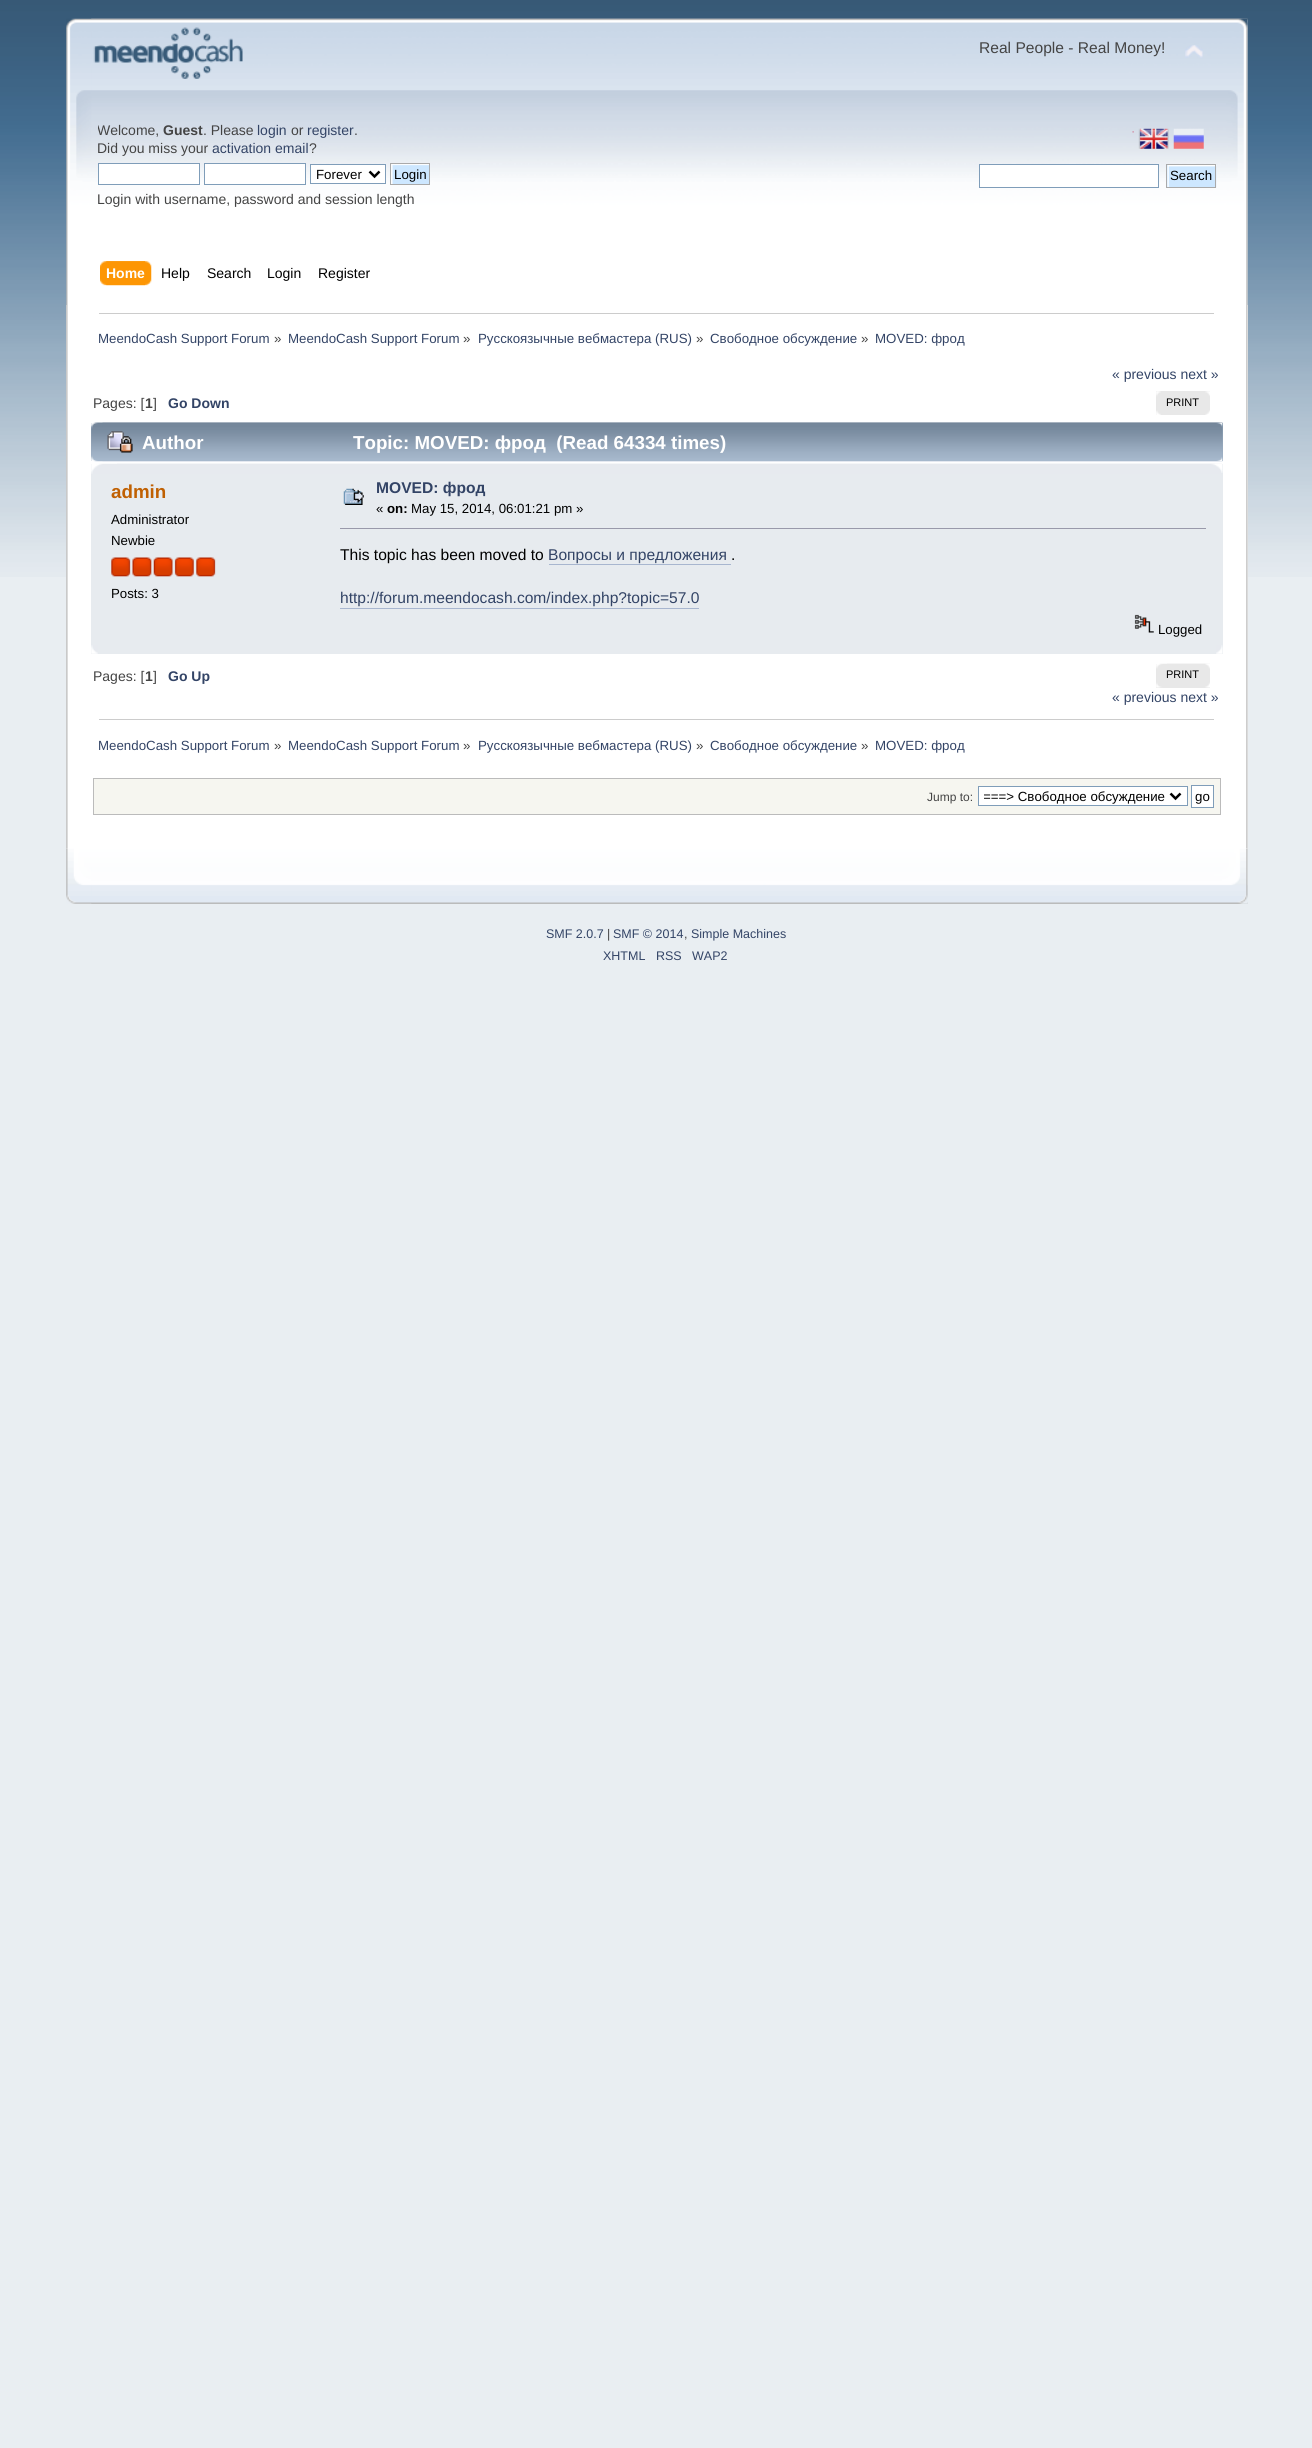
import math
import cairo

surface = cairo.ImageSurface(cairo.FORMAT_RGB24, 1312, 2448)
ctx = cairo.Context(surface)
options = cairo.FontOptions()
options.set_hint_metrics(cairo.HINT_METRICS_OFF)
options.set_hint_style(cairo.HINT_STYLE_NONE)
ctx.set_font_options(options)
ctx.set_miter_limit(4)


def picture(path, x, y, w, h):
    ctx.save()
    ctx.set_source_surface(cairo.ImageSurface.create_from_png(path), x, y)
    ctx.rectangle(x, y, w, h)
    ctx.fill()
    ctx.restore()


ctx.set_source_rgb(0.914, 0.933, 0.949)
ctx.paint()
picture("img1.png", 0, 0, 1312, 577)
picture("img2.png", 66, 18, 1182, 287)
picture("img3.png", 91, 18, 1157, 287)
picture("img4.png", 93, 27, 150, 52)
ctx.select_font_face("Liberation Sans")
ctx.set_font_size(15.6)
ctx.set_source_rgb(0.267, 0.267, 0.267)
ctx.move_to(979, 53)
ctx.show_text("Real People - Real Money!")
picture("img5.png", 1185, 45, 18, 13)
ctx.save()
ctx.rectangle(98, 116, 558, 98)
ctx.clip()
ctx.set_font_size(14)
ctx.move_to(97, 135)
ctx.show_text("Welcome,")
ctx.restore()
ctx.select_font_face("Liberation Sans", cairo.FONT_SLANT_NORMAL, cairo.FONT_WEIGHT_BOLD)
ctx.set_font_size(14)
ctx.move_to(163, 135)
ctx.show_text("Guest")
ctx.select_font_face("Liberation Sans")
ctx.move_to(203, 135)
ctx.show_text(". Please")
ctx.set_source_rgb(0.2, 0.267, 0.4)
ctx.move_to(257, 135)
ctx.show_text("login")
ctx.set_source_rgb(0.267, 0.267, 0.267)
ctx.move_to(291, 135)
ctx.show_text("or")
ctx.set_source_rgb(0.2, 0.267, 0.4)
ctx.move_to(307, 135)
ctx.show_text("register")
ctx.set_source_rgb(0.267, 0.267, 0.267)
ctx.move_to(354, 135)
ctx.show_text(".")
ctx.move_to(97, 153)
ctx.show_text("Did you miss your")
ctx.set_source_rgb(0.2, 0.267, 0.4)
ctx.move_to(212, 153)
ctx.show_text("activation email")
ctx.set_source_rgb(0.267, 0.267, 0.267)
ctx.move_to(309, 153)
ctx.show_text("?")
ctx.set_source_rgb(1, 1, 1)
ctx.rectangle(98.5, 163.5, 101, 21)
ctx.fill_preserve()
ctx.set_source_rgb(0.498, 0.616, 0.725)
ctx.set_line_width(1)
ctx.stroke()
ctx.set_source_rgb(1, 1, 1)
ctx.rectangle(204.5, 163.5, 101, 21)
ctx.fill_preserve()
ctx.set_source_rgb(0.498, 0.616, 0.725)
ctx.stroke()
ctx.set_source_rgb(1, 1, 1)
ctx.rectangle(310.5, 164.5, 75, 19)
ctx.fill_preserve()
ctx.set_source_rgb(0.498, 0.616, 0.725)
ctx.stroke()
ctx.new_path()
ctx.move_to(369.5, 171.5)
ctx.line_to(374.5, 176.5)
ctx.line_to(379.5, 171.5)
ctx.set_source_rgb(0, 0, 0)
ctx.set_line_width(2.5)
ctx.stroke()
ctx.set_font_size(13.3)
ctx.move_to(316, 179)
ctx.show_text("Forever")
picture("img6.png", 391, 164, 38, 20)
ctx.rectangle(390.5, 163.5, 39, 21)
ctx.set_source_rgb(0.667, 0.667, 0.667)
ctx.set_line_width(1)
ctx.stroke()
ctx.set_source_rgb(0, 0, 0)
ctx.move_to(394, 179)
ctx.show_text("Login")
ctx.set_font_size(14)
ctx.set_source_rgb(0.267, 0.267, 0.267)
ctx.move_to(97, 204)
ctx.show_text("Login with username, password and session length")
picture("img7.png", 1132, 131, 2, 2)
picture("img8.png", 1138, 128, 31, 21)
picture("img9.png", 1173, 128, 31, 21)
ctx.set_source_rgb(1, 1, 1)
ctx.rectangle(979.5, 164.5, 179, 23)
ctx.fill_preserve()
ctx.set_source_rgb(0.498, 0.616, 0.725)
ctx.stroke()
ctx.set_source_rgb(0.804, 0.906, 1)
ctx.rectangle(1167, 165, 1, 22)
ctx.fill()
picture("img10.png", 1167, 165, 50, 23)
ctx.rectangle(1166.5, 164.5, 49, 23)
ctx.set_source_rgb(0.667, 0.667, 0.667)
ctx.stroke()
ctx.set_font_size(13.3)
ctx.set_source_rgb(0, 0, 0)
ctx.move_to(1170, 180)
ctx.show_text("Search")
picture("img11.png", 106, 261, 46, 25)
picture("img12.png", 100, 261, 45, 25)
ctx.select_font_face("Liberation Sans", cairo.FONT_SLANT_NORMAL, cairo.FONT_WEIGHT_BOLD)
ctx.set_font_size(14)
ctx.set_source_rgb(1, 1, 1)
ctx.move_to(106, 278)
ctx.show_text("Home")
ctx.select_font_face("Liberation Sans")
ctx.set_source_rgb(0, 0, 0)
ctx.move_to(161, 278)
ctx.show_text("Help")
ctx.move_to(207, 278)
ctx.show_text("Search")
ctx.move_to(267, 278)
ctx.show_text("Login")
ctx.move_to(318, 278)
ctx.show_text("Register")
ctx.set_source_rgb(1, 1, 1)
ctx.rectangle(66, 305, 1182, 544)
ctx.fill()
picture("img13.png", 66, 305, 2, 544)
picture("img14.png", 1246, 305, 2, 544)
ctx.set_source_rgb(0.8, 0.8, 0.8)
ctx.rectangle(99, 313, 1115, 1)
ctx.fill()
ctx.set_font_size(13.3)
ctx.set_source_rgb(0.2, 0.267, 0.4)
ctx.move_to(98, 343)
ctx.show_text("MeendoCash Support Forum")
ctx.set_source_rgb(0.267, 0.267, 0.267)
ctx.move_to(274, 343)
ctx.show_text("»")
ctx.set_source_rgb(0.2, 0.267, 0.4)
ctx.move_to(288, 343)
ctx.show_text("MeendoCash Support Forum")
ctx.set_source_rgb(0.267, 0.267, 0.267)
ctx.move_to(463, 343)
ctx.show_text("»")
ctx.set_source_rgb(0.2, 0.267, 0.4)
ctx.move_to(478, 343)
ctx.show_text("Русскоязычные вебмастера (RUS)")
ctx.set_source_rgb(0.267, 0.267, 0.267)
ctx.move_to(696, 343)
ctx.show_text("»")
ctx.set_source_rgb(0.2, 0.267, 0.4)
ctx.move_to(710, 343)
ctx.show_text("Свободное обсуждение")
ctx.set_source_rgb(0.267, 0.267, 0.267)
ctx.move_to(861, 343)
ctx.show_text("»")
ctx.set_source_rgb(0.2, 0.267, 0.4)
ctx.move_to(875, 343)
ctx.show_text("MOVED: фрод")
ctx.set_font_size(14)
ctx.move_to(1112, 379)
ctx.show_text("« previous next »")
ctx.set_source_rgb(0.267, 0.267, 0.267)
ctx.move_to(93, 408)
ctx.show_text("Pages: [")
ctx.select_font_face("Liberation Sans", cairo.FONT_SLANT_NORMAL, cairo.FONT_WEIGHT_BOLD)
ctx.move_to(145, 408)
ctx.show_text("1")
ctx.select_font_face("Liberation Sans")
ctx.move_to(153, 408)
ctx.show_text("]")
ctx.select_font_face("Liberation Sans", cairo.FONT_SLANT_NORMAL, cairo.FONT_WEIGHT_BOLD)
ctx.set_source_rgb(0.2, 0.267, 0.4)
ctx.move_to(168, 408)
ctx.show_text("Go Down")
ctx.set_source_rgb(0.91, 0.91, 0.91)
ctx.rectangle(1156, 391, 54, 24)
ctx.fill()
picture("img15.png", 1156, 391, 5, 24)
picture("img16.png", 1205, 391, 5, 24)
ctx.select_font_face("Liberation Sans")
ctx.set_font_size(11)
ctx.set_source_rgb(0, 0, 0)
ctx.move_to(1166, 406)
ctx.show_text("PRINT")
ctx.set_source_rgb(0.6, 0.671, 0.749)
ctx.rectangle(91, 423, 1132, 38)
ctx.fill()
picture("img17.png", 91, 422, 1132, 40)
picture("img18.png", 102, 422, 1121, 40)
picture("img19.png", 107, 431, 26, 22)
ctx.select_font_face("Liberation Sans", cairo.FONT_SLANT_NORMAL, cairo.FONT_WEIGHT_BOLD)
ctx.set_font_size(18.75)
ctx.set_source_rgb(1, 1, 1)
ctx.move_to(142, 449)
ctx.show_text("Author")
ctx.move_to(353, 449)
ctx.show_text("Topic: MOVED: фрод  (Read 64334 times)")
ctx.set_source_rgb(0.906, 0.918, 0.937)
ctx.rectangle(91, 464, 1132, 190)
ctx.fill()
picture("img20.png", 91, 463, 1131, 11)
picture("img21.png", 117, 463, 1106, 10)
ctx.set_source_rgb(0.753, 0.376, 0.008)
ctx.move_to(111, 498)
ctx.show_text("admin")
ctx.select_font_face("Liberation Sans")
ctx.set_font_size(13.25)
ctx.set_source_rgb(0, 0, 0)
ctx.move_to(111, 524)
ctx.show_text("Administrator")
ctx.move_to(111, 545)
ctx.show_text("Newbie")
picture("img22.png", 111, 557, 20, 20)
picture("img23.png", 132, 557, 20, 20)
picture("img24.png", 153, 557, 20, 20)
picture("img25.png", 174, 557, 20, 20)
picture("img22.png", 196, 557, 20, 20)
ctx.move_to(111, 598)
ctx.show_text("Posts: 3")
picture("img26.png", 343, 488, 21, 17)
ctx.select_font_face("Liberation Sans", cairo.FONT_SLANT_NORMAL, cairo.FONT_WEIGHT_BOLD)
ctx.set_font_size(15.6)
ctx.set_source_rgb(0.2, 0.267, 0.4)
ctx.move_to(376, 493)
ctx.show_text("MOVED: фрод")
ctx.select_font_face("Liberation Sans")
ctx.set_font_size(13.25)
ctx.set_source_rgb(0, 0, 0)
ctx.move_to(376, 513)
ctx.show_text("«")
ctx.select_font_face("Liberation Sans", cairo.FONT_SLANT_NORMAL, cairo.FONT_WEIGHT_BOLD)
ctx.move_to(387, 513)
ctx.show_text("on:")
ctx.select_font_face("Liberation Sans")
ctx.move_to(411, 513)
ctx.show_text("May 15, 2014, 06:01:21 pm »")
ctx.set_source_rgb(0.6, 0.6, 0.667)
ctx.rectangle(340, 528, 866, 1)
ctx.fill()
ctx.set_font_size(15.6)
ctx.set_source_rgb(0, 0, 0)
ctx.move_to(340, 560)
ctx.show_text("This topic has been moved to")
ctx.set_source_rgb(0.2, 0.267, 0.4)
ctx.move_to(548, 560)
ctx.show_text("Вопросы и предложения")
ctx.set_source_rgb(0.659, 0.714, 0.812)
ctx.rectangle(549, 564, 182, 1)
ctx.fill()
ctx.set_source_rgb(0, 0, 0)
ctx.move_to(731, 560)
ctx.show_text(".")
ctx.set_source_rgb(0.2, 0.267, 0.4)
ctx.move_to(340, 603)
ctx.show_text("http://forum.meendocash.com/index.php?topic=57.0")
ctx.set_source_rgb(0.659, 0.714, 0.812)
ctx.rectangle(340, 608, 359, 1)
ctx.fill()
picture("img27.png", 1134, 614, 20, 19)
ctx.set_font_size(13.25)
ctx.set_source_rgb(0, 0, 0)
ctx.move_to(1158, 634)
ctx.show_text("Logged")
picture("img28.png", 91, 645, 7, 9)
picture("img29.png", 1216, 645, 7, 9)
ctx.set_font_size(14)
ctx.set_source_rgb(0.267, 0.267, 0.267)
ctx.move_to(93, 681)
ctx.show_text("Pages: [")
ctx.select_font_face("Liberation Sans", cairo.FONT_SLANT_NORMAL, cairo.FONT_WEIGHT_BOLD)
ctx.move_to(145, 681)
ctx.show_text("1")
ctx.select_font_face("Liberation Sans")
ctx.move_to(153, 681)
ctx.show_text("]")
ctx.select_font_face("Liberation Sans", cairo.FONT_SLANT_NORMAL, cairo.FONT_WEIGHT_BOLD)
ctx.set_source_rgb(0.2, 0.267, 0.4)
ctx.move_to(168, 681)
ctx.show_text("Go Up")
ctx.set_source_rgb(0.91, 0.91, 0.91)
ctx.rectangle(1156, 664, 54, 24)
ctx.fill()
picture("img30.png", 1156, 663, 54, 25)
picture("img31.png", 1167, 663, 43, 25)
ctx.select_font_face("Liberation Sans")
ctx.set_font_size(11)
ctx.set_source_rgb(0, 0, 0)
ctx.move_to(1166, 678)
ctx.show_text("PRINT")
ctx.set_font_size(14)
ctx.set_source_rgb(0.2, 0.267, 0.4)
ctx.move_to(1112, 702)
ctx.show_text("« previous next »")
ctx.set_source_rgb(0.8, 0.8, 0.8)
ctx.rectangle(99, 719, 1115, 1)
ctx.fill()
ctx.set_font_size(13.3)
ctx.set_source_rgb(0.2, 0.267, 0.4)
ctx.move_to(98, 750)
ctx.show_text("MeendoCash Support Forum")
ctx.set_source_rgb(0.267, 0.267, 0.267)
ctx.move_to(274, 750)
ctx.show_text("»")
ctx.set_source_rgb(0.2, 0.267, 0.4)
ctx.move_to(288, 750)
ctx.show_text("MeendoCash Support Forum")
ctx.set_source_rgb(0.267, 0.267, 0.267)
ctx.move_to(463, 750)
ctx.show_text("»")
ctx.set_source_rgb(0.2, 0.267, 0.4)
ctx.move_to(478, 750)
ctx.show_text("Русскоязычные вебмастера (RUS)")
ctx.set_source_rgb(0.267, 0.267, 0.267)
ctx.move_to(696, 750)
ctx.show_text("»")
ctx.set_source_rgb(0.2, 0.267, 0.4)
ctx.move_to(710, 750)
ctx.show_text("Свободное обсуждение")
ctx.set_source_rgb(0.267, 0.267, 0.267)
ctx.move_to(861, 750)
ctx.show_text("»")
ctx.set_source_rgb(0.2, 0.267, 0.4)
ctx.move_to(875, 750)
ctx.show_text("MOVED: фрод")
ctx.set_source_rgb(0.961, 0.961, 0.941)
ctx.rectangle(93.5, 778.5, 1127, 36)
ctx.fill_preserve()
ctx.set_source_rgb(0.733, 0.733, 0.733)
ctx.stroke()
ctx.set_font_size(12)
ctx.set_source_rgb(0.267, 0.267, 0.267)
ctx.move_to(927, 801)
ctx.show_text("Jump to:")
ctx.set_source_rgb(1, 1, 1)
ctx.rectangle(978.5, 786.5, 209, 19)
ctx.fill_preserve()
ctx.set_source_rgb(0.498, 0.616, 0.725)
ctx.stroke()
ctx.new_path()
ctx.move_to(1170.5, 793.5)
ctx.line_to(1175.5, 798.5)
ctx.line_to(1180.5, 793.5)
ctx.set_source_rgb(0, 0, 0)
ctx.set_line_width(2.5)
ctx.stroke()
ctx.save()
ctx.rectangle(984, 788, 182, 17)
ctx.clip()
ctx.set_font_size(13.3)
ctx.move_to(983, 801)
ctx.show_text("===> Свободное обсуждение")
ctx.restore()
ctx.set_source_rgb(1, 1, 1)
ctx.rectangle(1191.5, 785.5, 22, 22)
ctx.fill_preserve()
ctx.set_source_rgb(0.498, 0.616, 0.725)
ctx.set_line_width(1)
ctx.stroke()
ctx.set_font_size(13.3)
ctx.set_source_rgb(0, 0, 0)
ctx.move_to(1195, 801)
ctx.show_text("go")
picture("img32.png", 66, 848, 1182, 56)
picture("img33.png", 91, 848, 1157, 56)
ctx.set_font_size(12.5)
ctx.set_source_rgb(0.2, 0.267, 0.4)
ctx.move_to(546, 938)
ctx.show_text("SMF 2.0.7")
ctx.set_source_rgb(0.267, 0.267, 0.267)
ctx.move_to(607, 938)
ctx.show_text("|")
ctx.set_source_rgb(0.2, 0.267, 0.4)
ctx.move_to(613, 938)
ctx.show_text("SMF © 2014")
ctx.set_source_rgb(0.267, 0.267, 0.267)
ctx.move_to(684, 938)
ctx.show_text(",")
ctx.set_source_rgb(0.2, 0.267, 0.4)
ctx.move_to(691, 938)
ctx.show_text("Simple Machines")
ctx.move_to(603, 960)
ctx.show_text("XHTML")
ctx.move_to(656, 960)
ctx.show_text("RSS")
ctx.move_to(692, 960)
ctx.show_text("WAP2")
surface.write_to_png("page.png")
